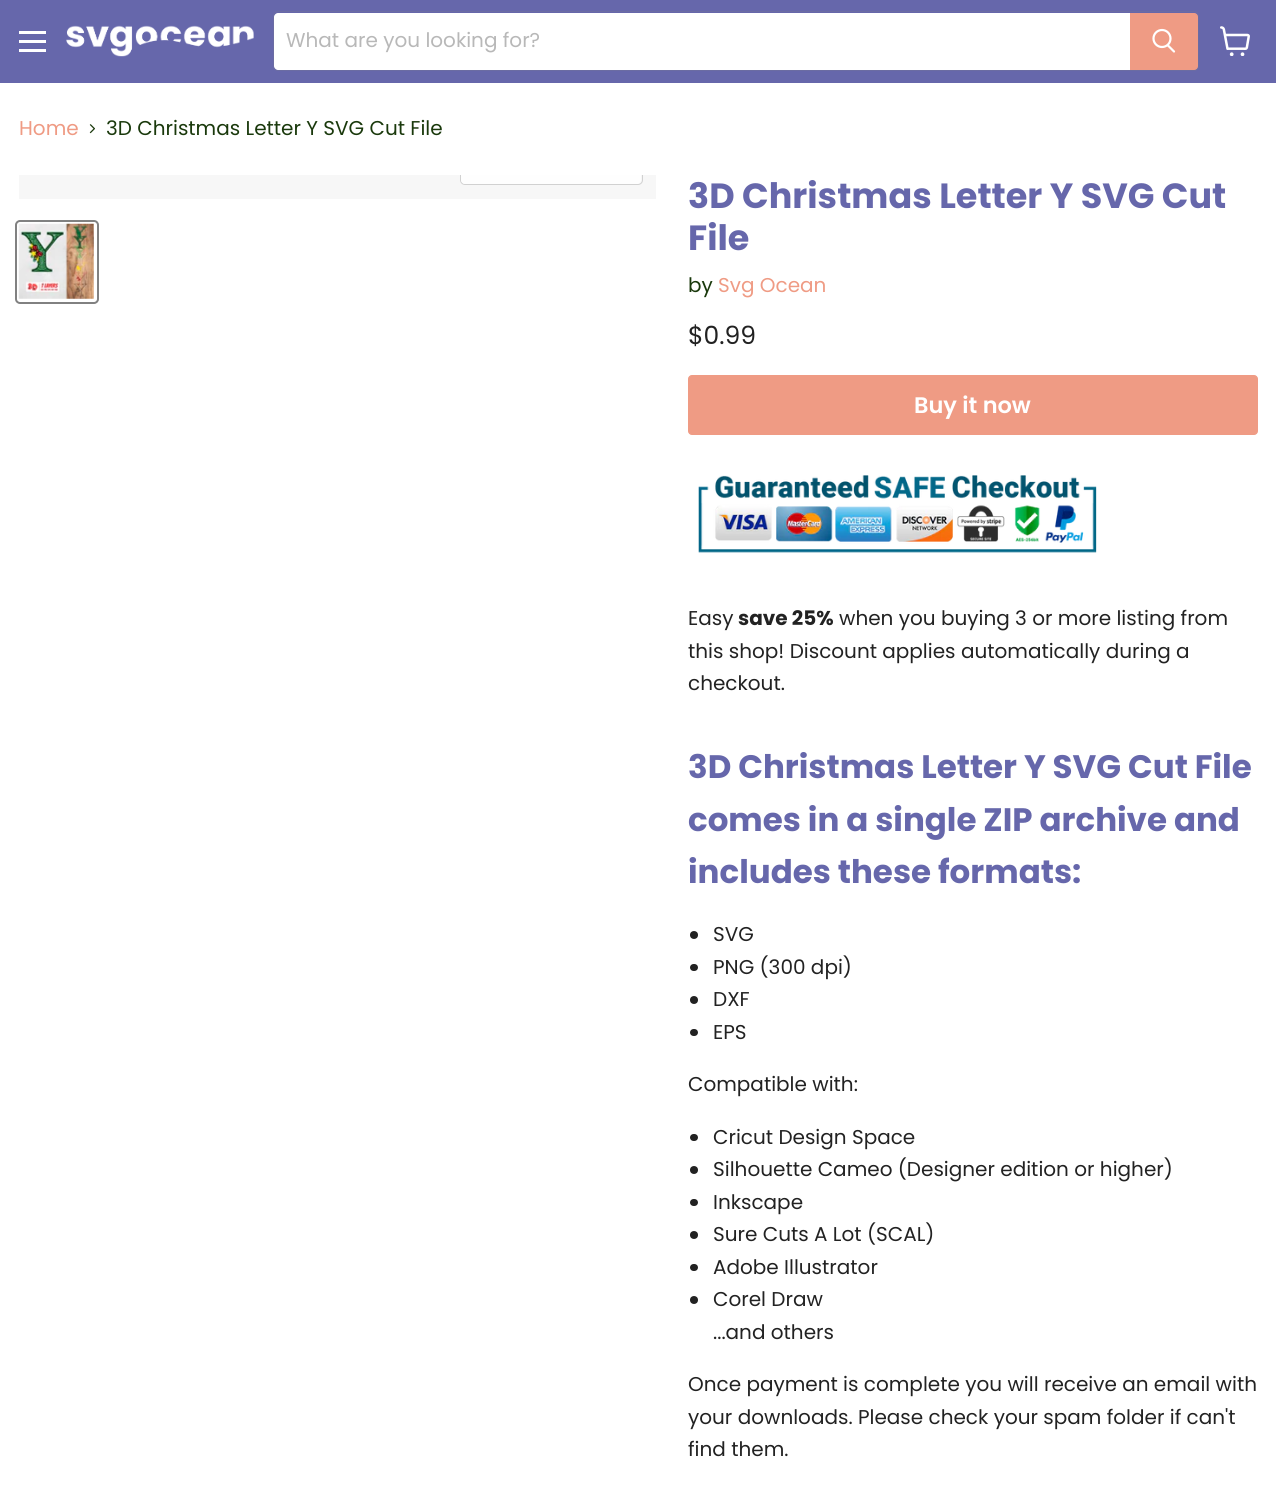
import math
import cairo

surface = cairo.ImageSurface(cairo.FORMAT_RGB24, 1276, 1496)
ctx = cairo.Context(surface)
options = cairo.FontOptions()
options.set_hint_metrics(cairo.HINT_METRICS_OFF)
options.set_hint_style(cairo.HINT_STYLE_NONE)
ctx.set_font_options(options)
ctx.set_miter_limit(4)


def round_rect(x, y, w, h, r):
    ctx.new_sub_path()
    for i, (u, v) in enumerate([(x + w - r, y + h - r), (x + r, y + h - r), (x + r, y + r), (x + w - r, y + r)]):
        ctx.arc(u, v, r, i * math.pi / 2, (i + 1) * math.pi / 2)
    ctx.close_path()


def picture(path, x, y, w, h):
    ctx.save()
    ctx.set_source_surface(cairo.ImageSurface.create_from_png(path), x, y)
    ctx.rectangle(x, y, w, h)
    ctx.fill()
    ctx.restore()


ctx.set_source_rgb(1, 1, 1)
ctx.paint()
ctx.set_source_rgb(0.4, 0.404, 0.671)
ctx.rectangle(0, 0, 1276, 83)
ctx.fill()
ctx.set_source_rgb(1, 1, 1)
ctx.rectangle(19, 31, 27, 3)
ctx.fill()
ctx.rectangle(19, 40, 27, 3)
ctx.fill()
ctx.rectangle(19, 49, 27, 3)
ctx.fill()
picture("img1.png", 66, 25, 188, 32)
round_rect(273.5, 11.5, 925, 59, 4.5)
ctx.set_source_rgb(0.42, 0.424, 0.635)
ctx.set_line_width(1)
ctx.stroke()
ctx.set_source_rgb(1, 1, 1)
ctx.new_path()
ctx.move_to(278, 13)
ctx.line_to(1130, 13)
ctx.line_to(1130, 70)
ctx.line_to(278, 70)
ctx.curve_to(276, 70, 274, 68, 274, 66)
ctx.line_to(274, 17)
ctx.curve_to(274, 15, 276, 13, 278, 13)
ctx.close_path()
ctx.fill()
ctx.select_font_face("Poppins")
ctx.set_font_size(20)
ctx.set_source_rgb(0.722, 0.722, 0.722)
ctx.move_to(286, 47)
ctx.show_text("What are you looking for?")
ctx.set_source_rgb(0.937, 0.608, 0.518)
ctx.new_path()
ctx.move_to(1130.5, 13.5)
ctx.line_to(1194, 13.5)
ctx.curve_to(1196, 13.5, 1197.5, 15, 1197.5, 17)
ctx.line_to(1197.5, 66)
ctx.curve_to(1197.5, 68, 1196, 69.5, 1194, 69.5)
ctx.line_to(1130.5, 69.5)
ctx.close_path()
ctx.fill_preserve()
ctx.stroke()
ctx.new_path()
ctx.move_to(1174, 51.5)
ctx.line_to(1168, 45.5)
ctx.set_source_rgb(1, 1, 1)
ctx.set_line_width(2.2)
ctx.set_line_cap(cairo.LINE_CAP_ROUND)
ctx.stroke()
ctx.arc(1162, 38.5, 8.5, 0, 2 * math.pi)
ctx.set_line_cap(cairo.LINE_CAP_BUTT)
ctx.stroke()
picture("img2.png", 1220, 26, 30, 30)
ctx.set_source_rgb(0.937, 0.608, 0.518)
ctx.move_to(19, 135)
ctx.show_text("Home")
picture("img3.png", 89, 124, 6, 10)
ctx.set_source_rgb(0.102, 0.224, 0.047)
ctx.move_to(106, 135)
ctx.show_text("3D Christmas Letter Y SVG Cut File")
ctx.set_source_rgb(0.965, 0.965, 0.965)
ctx.rectangle(19, 175, 637, 24)
ctx.fill()
ctx.save()
ctx.rectangle(19, 175, 637, 24)
ctx.clip()
round_rect(460.5, 148.5, 182, 36, 4.5)
ctx.set_source_rgb(0.82, 0.82, 0.82)
ctx.set_line_width(1)
ctx.stroke()
ctx.restore()
ctx.set_source_rgba(1, 1, 1, 0.9)
ctx.new_path()
ctx.move_to(461, 175)
ctx.line_to(641, 175)
ctx.line_to(641, 180)
ctx.curve_to(641, 182, 639, 184, 637, 184)
ctx.line_to(465, 184)
ctx.curve_to(463, 184, 461, 182, 461, 180)
ctx.close_path()
ctx.fill()
round_rect(16, 221, 82, 82, 4)
ctx.set_source_rgb(0.506, 0.506, 0.506)
ctx.set_line_width(2)
ctx.stroke()
picture("img4.png", 18, 223, 76, 76)
ctx.select_font_face("Poppins", cairo.FONT_SLANT_NORMAL, cairo.FONT_WEIGHT_BOLD)
ctx.set_font_size(35)
ctx.set_source_rgb(0.4, 0.404, 0.671)
ctx.move_to(688, 208)
ctx.show_text("3D Christmas Letter Y SVG Cut")
ctx.move_to(688, 250)
ctx.show_text("File")
ctx.select_font_face("Poppins")
ctx.set_font_size(20)
ctx.set_source_rgb(0.102, 0.224, 0.047)
ctx.move_to(688, 292)
ctx.show_text("by")
ctx.set_source_rgb(0.937, 0.608, 0.518)
ctx.move_to(718, 292)
ctx.show_text("Svg Ocean")
ctx.set_font_size(25)
ctx.set_source_rgb(0.133, 0.133, 0.133)
ctx.move_to(688, 344)
ctx.show_text("$0.99")
ctx.set_source_rgb(0.937, 0.608, 0.518)
round_rect(688.5, 375.5, 569, 59, 3.5)
ctx.fill_preserve()
ctx.set_line_width(1)
ctx.stroke()
ctx.select_font_face("Poppins SemiBold")
ctx.set_font_size(22.5)
ctx.set_source_rgb(1, 1, 1)
ctx.move_to(914, 413)
ctx.show_text("Buy it now")
picture("img5.png", 698, 475, 399, 78)
ctx.select_font_face("Poppins")
ctx.set_font_size(20)
ctx.set_source_rgb(0.133, 0.133, 0.133)
ctx.move_to(688, 625)
ctx.show_text("Easy")
ctx.select_font_face("Poppins", cairo.FONT_SLANT_NORMAL, cairo.FONT_WEIGHT_BOLD)
ctx.move_to(738, 625)
ctx.show_text("save 25%")
ctx.select_font_face("Poppins")
ctx.move_to(839, 625)
ctx.show_text("when you buying 3 or more listing from")
ctx.move_to(688, 658)
ctx.show_text("this shop! Discount applies automatically during a")
ctx.move_to(688, 690)
ctx.show_text("checkout.")
ctx.select_font_face("Poppins", cairo.FONT_SLANT_NORMAL, cairo.FONT_WEIGHT_BOLD)
ctx.set_font_size(32.5)
ctx.set_source_rgb(0.4, 0.404, 0.671)
ctx.move_to(688, 778)
ctx.show_text("3D Christmas Letter Y SVG Cut File")
ctx.move_to(688, 831)
ctx.show_text("comes in a single ZIP archive and")
ctx.move_to(688, 883)
ctx.show_text("includes these formats:")
ctx.set_source_rgb(0.133, 0.133, 0.133)
ctx.new_path()
ctx.arc(694, 935, 4, 0, 2 * math.pi)
ctx.fill()
ctx.select_font_face("Poppins")
ctx.set_font_size(20)
ctx.move_to(713, 941)
ctx.show_text("SVG")
round_rect(690, 964, 8, 7, 3.5)
ctx.fill()
ctx.move_to(713, 974)
ctx.show_text("PNG (300 dpi)")
ctx.new_path()
ctx.arc(694, 1000, 4, 0, 2 * math.pi)
ctx.fill()
ctx.move_to(713, 1006)
ctx.show_text("DXF")
round_rect(690, 1029, 8, 7, 3.5)
ctx.fill()
ctx.move_to(713, 1039)
ctx.show_text("EPS")
ctx.move_to(688, 1091)
ctx.show_text("Compatible with:")
round_rect(690, 1134, 8, 7, 3.5)
ctx.fill()
ctx.move_to(713, 1144)
ctx.show_text("Cricut Design Space")
ctx.new_path()
ctx.arc(694, 1170, 4, 0, 2 * math.pi)
ctx.fill()
ctx.move_to(713, 1176)
ctx.show_text("Silhouette Cameo (Designer edition or higher)")
round_rect(690, 1199, 8, 7, 3.5)
ctx.fill()
ctx.move_to(713, 1209)
ctx.show_text("Inkscape")
ctx.new_path()
ctx.arc(694, 1235, 4, 0, 2 * math.pi)
ctx.fill()
ctx.move_to(713, 1241)
ctx.show_text("Sure Cuts A Lot (SCAL)")
round_rect(690, 1264, 8, 7, 3.5)
ctx.fill()
ctx.move_to(713, 1274)
ctx.show_text("Adobe Illustrator")
ctx.new_path()
ctx.arc(694, 1300, 4, 0, 2 * math.pi)
ctx.fill()
ctx.move_to(713, 1306)
ctx.show_text("Corel Draw")
ctx.move_to(713, 1339)
ctx.show_text("...and others")
ctx.move_to(688, 1391)
ctx.show_text("Once payment is complete you will receive an email with")
ctx.move_to(688, 1424)
ctx.show_text("your downloads. Please check your spam folder if can't")
ctx.move_to(688, 1456)
ctx.show_text("find them.")
surface.write_to_png("page.png")
